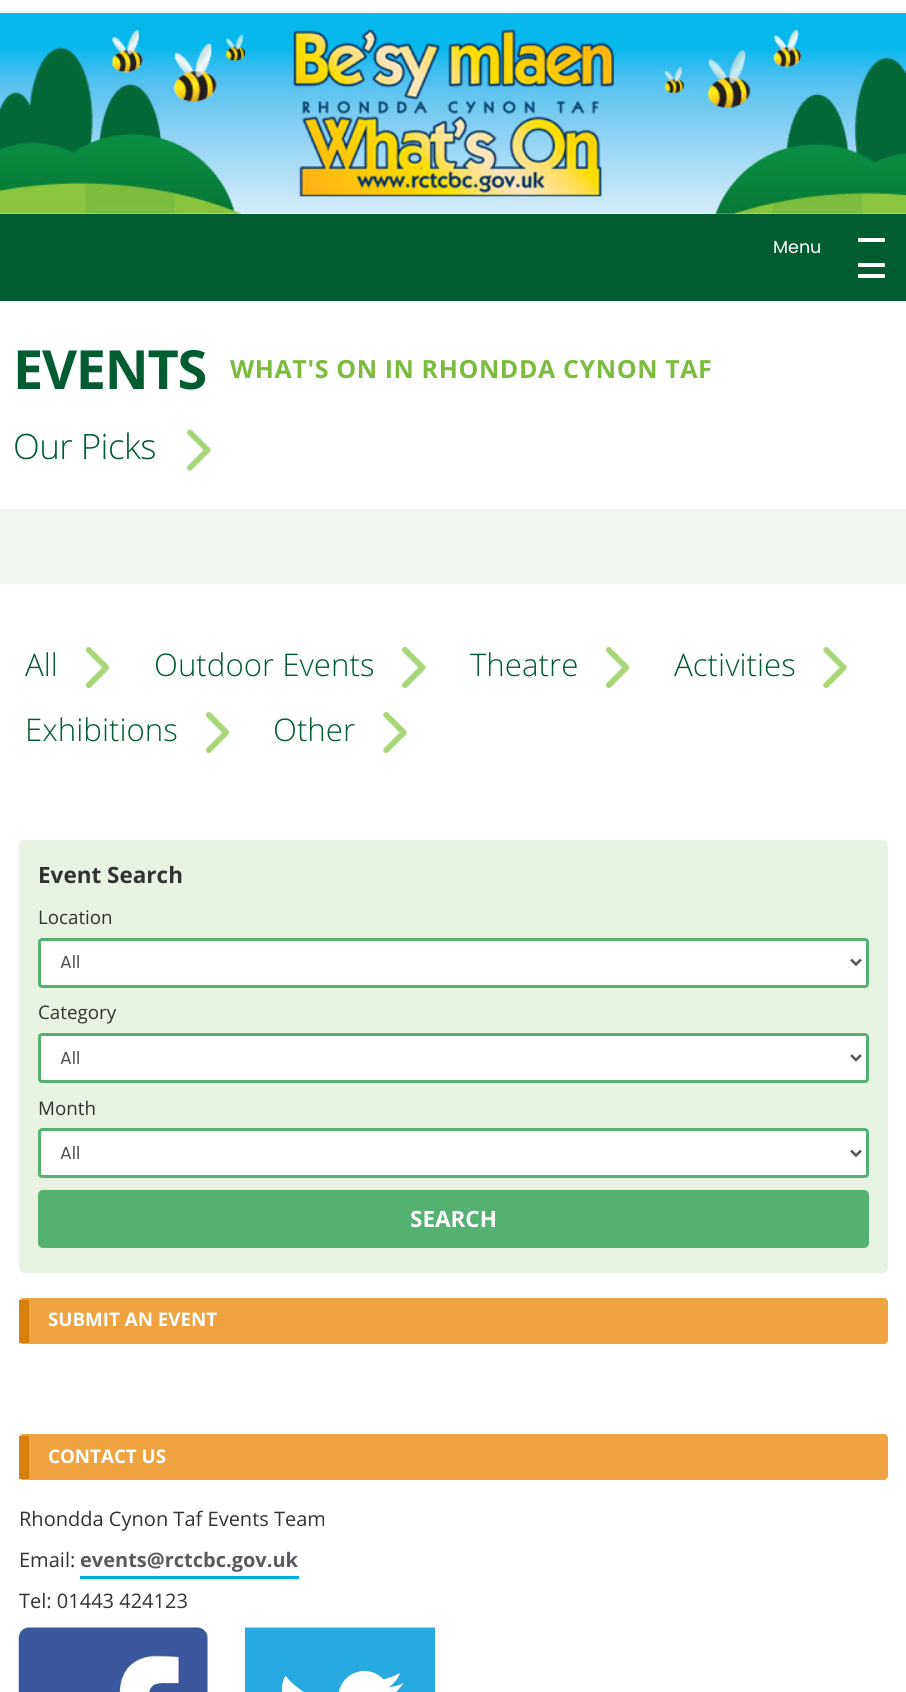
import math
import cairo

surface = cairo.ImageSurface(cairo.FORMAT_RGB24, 906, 1692)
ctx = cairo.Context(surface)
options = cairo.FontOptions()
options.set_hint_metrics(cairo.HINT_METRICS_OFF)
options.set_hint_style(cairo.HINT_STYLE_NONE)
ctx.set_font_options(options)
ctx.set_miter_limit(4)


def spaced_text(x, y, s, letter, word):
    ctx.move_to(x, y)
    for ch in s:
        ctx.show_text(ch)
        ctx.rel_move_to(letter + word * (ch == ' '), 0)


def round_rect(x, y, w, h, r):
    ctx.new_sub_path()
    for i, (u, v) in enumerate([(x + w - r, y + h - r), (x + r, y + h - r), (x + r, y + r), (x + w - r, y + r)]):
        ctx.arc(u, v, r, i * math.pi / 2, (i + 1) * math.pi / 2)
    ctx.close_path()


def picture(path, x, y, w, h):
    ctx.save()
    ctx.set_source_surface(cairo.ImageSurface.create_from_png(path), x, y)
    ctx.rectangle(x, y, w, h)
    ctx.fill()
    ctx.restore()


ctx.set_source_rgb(1, 1, 1)
ctx.paint()
ctx.set_source_rgb(0.922, 0.929, 0.937)
ctx.rectangle(0, 11, 906, 1)
ctx.fill()
picture("img1.png", 0, 13, 906, 201)
ctx.set_source_rgb(0.004, 0.361, 0.192)
ctx.rectangle(0, 214, 906, 87)
ctx.fill()
ctx.select_font_face("Poppins")
ctx.set_font_size(17.5)
ctx.set_source_rgb(1, 1, 1)
ctx.move_to(773, 253)
ctx.show_text("Menu")
round_rect(858, 238, 27, 4, 1)
ctx.fill()
round_rect(858, 263, 27, 4, 1)
ctx.fill()
round_rect(858, 274, 27, 4, 1)
ctx.fill()
ctx.select_font_face("Open Sans", cairo.FONT_SLANT_NORMAL, cairo.FONT_WEIGHT_BOLD)
ctx.set_font_size(54)
ctx.set_source_rgb(0.004, 0.361, 0.192)
spaced_text(13, 389, "EVENTS", -1.25, 0)
ctx.set_font_size(25)
ctx.set_source_rgb(0.482, 0.737, 0.243)
spaced_text(230, 378, "WHAT'S ON IN RHONDDA CYNON TAF", 0.6, 0)
ctx.select_font_face("Open Sans Light")
ctx.set_font_size(35)
ctx.set_source_rgb(0.004, 0.361, 0.192)
spaced_text(13, 459, "Our Picks", -0.6, 0)
picture("img2.png", 187, 429, 24, 42)
ctx.set_source_rgb(0.945, 0.965, 0.937)
ctx.rectangle(0, 509, 906, 75)
ctx.fill()
ctx.set_font_size(31.25)
ctx.set_source_rgb(0.004, 0.361, 0.192)
ctx.move_to(25, 676)
ctx.show_text("All")
picture("img3.png", 85, 647, 25, 41)
ctx.move_to(154, 676)
ctx.show_text("Outdoor Events")
picture("img4.png", 402, 647, 24, 41)
ctx.move_to(470, 676)
ctx.show_text("Theatre")
picture("img3.png", 605, 647, 25, 41)
ctx.move_to(674, 676)
ctx.show_text("Activities")
picture("img5.png", 823, 647, 24, 41)
ctx.move_to(25, 741)
ctx.show_text("Exhibitions")
picture("img3.png", 205, 712, 25, 41)
ctx.move_to(273, 741)
ctx.show_text("Other")
picture("img5.png", 383, 712, 24, 41)
ctx.set_source_rgb(0.914, 0.953, 0.894)
round_rect(19, 840, 869, 433, 5)
ctx.fill()
ctx.select_font_face("Open Sans", cairo.FONT_SLANT_NORMAL, cairo.FONT_WEIGHT_BOLD)
ctx.set_font_size(22.5)
ctx.set_source_rgb(0.2, 0.2, 0.2)
ctx.move_to(38, 883)
ctx.show_text("Event Search")
ctx.select_font_face("Open Sans")
ctx.set_font_size(18.75)
ctx.move_to(38, 924)
ctx.show_text("Location")
ctx.set_source_rgb(1, 1, 1)
round_rect(38, 938, 831, 50, 4)
ctx.fill()
ctx.set_source_rgb(0.925, 0.925, 0.925)
ctx.new_path()
ctx.move_to(41, 941)
ctx.line_to(865, 941)
ctx.line_to(866, 942)
ctx.line_to(866, 941)
ctx.line_to(865, 940)
ctx.line_to(41, 940)
ctx.line_to(40, 941)
ctx.line_to(40, 942)
ctx.close_path()
ctx.fill()
round_rect(39.5, 939.5, 828, 47, 2.5)
ctx.set_source_rgb(0.333, 0.694, 0.435)
ctx.set_line_width(3)
ctx.stroke()
ctx.new_path()
ctx.move_to(851, 959.5)
ctx.line_to(856, 964.5)
ctx.line_to(861, 959.5)
ctx.set_source_rgb(0.333, 0.333, 0.333)
ctx.set_line_width(2.5)
ctx.stroke()
ctx.select_font_face("Poppins")
ctx.set_font_size(17.5)
ctx.move_to(60, 968)
ctx.show_text("All")
ctx.select_font_face("Open Sans")
ctx.set_font_size(18.75)
ctx.set_source_rgb(0.2, 0.2, 0.2)
ctx.move_to(38, 1019)
ctx.show_text("Category")
ctx.set_source_rgb(1, 1, 1)
round_rect(39.5, 1034.5, 828, 47, 2.5)
ctx.fill_preserve()
ctx.set_source_rgb(0.333, 0.694, 0.435)
ctx.set_line_width(3)
ctx.stroke()
ctx.new_path()
ctx.move_to(851, 1055)
ctx.line_to(856, 1060)
ctx.line_to(861, 1055)
ctx.set_source_rgb(0.333, 0.333, 0.333)
ctx.set_line_width(2.5)
ctx.stroke()
ctx.select_font_face("Poppins")
ctx.set_font_size(17.5)
ctx.move_to(60, 1064)
ctx.show_text("All")
ctx.select_font_face("Open Sans")
ctx.set_font_size(18.75)
ctx.set_source_rgb(0.2, 0.2, 0.2)
ctx.move_to(38, 1115)
ctx.show_text("Month")
ctx.set_source_rgb(1, 1, 1)
round_rect(38, 1128, 831, 50, 4)
ctx.fill()
ctx.set_source_rgb(0.925, 0.925, 0.925)
ctx.new_path()
ctx.move_to(41, 1131)
ctx.line_to(865, 1131)
ctx.line_to(866, 1132)
ctx.line_to(866, 1131)
ctx.line_to(865, 1130)
ctx.line_to(41, 1130)
ctx.line_to(40, 1131)
ctx.line_to(40, 1132)
ctx.close_path()
ctx.fill()
round_rect(39.5, 1129.5, 828, 47, 2.5)
ctx.set_source_rgb(0.333, 0.694, 0.435)
ctx.set_line_width(3)
ctx.stroke()
ctx.new_path()
ctx.move_to(851, 1150.5)
ctx.line_to(856, 1155.5)
ctx.line_to(861, 1150.5)
ctx.set_source_rgb(0.333, 0.333, 0.333)
ctx.set_line_width(2.5)
ctx.stroke()
ctx.select_font_face("Poppins")
ctx.set_font_size(17.5)
ctx.move_to(60, 1159)
ctx.show_text("All")
ctx.set_source_rgb(0.333, 0.694, 0.435)
round_rect(38, 1190, 831, 58, 5)
ctx.fill()
ctx.select_font_face("Open Sans", cairo.FONT_SLANT_NORMAL, cairo.FONT_WEIGHT_BOLD)
ctx.set_font_size(22.5)
ctx.set_source_rgb(1, 1, 1)
ctx.move_to(410, 1227)
ctx.show_text("SEARCH")
ctx.set_source_rgb(0.941, 0.643, 0.255)
round_rect(19, 1298, 869, 46, 4)
ctx.fill()
ctx.set_source_rgb(0.839, 0.502, 0.067)
ctx.rectangle(19, 1300, 10, 43)
ctx.fill()
ctx.set_font_size(18.75)
ctx.set_source_rgb(1, 1, 1)
ctx.move_to(48, 1326)
ctx.show_text("SUBMIT AN EVENT")
ctx.set_source_rgb(0.941, 0.643, 0.255)
round_rect(19, 1434, 869, 46, 4)
ctx.fill()
ctx.set_source_rgb(0.839, 0.502, 0.067)
ctx.rectangle(19, 1436, 10, 43)
ctx.fill()
ctx.set_source_rgb(1, 1, 1)
ctx.move_to(48, 1463)
ctx.show_text("CONTACT US")
ctx.select_font_face("Open Sans")
ctx.set_font_size(20)
ctx.set_source_rgb(0.2, 0.2, 0.2)
ctx.move_to(19, 1526)
ctx.show_text("Rhondda Cynon Taf Events Team")
ctx.move_to(19, 1567)
ctx.show_text("Email:")
ctx.select_font_face("Open Sans", cairo.FONT_SLANT_NORMAL, cairo.FONT_WEIGHT_BOLD)
ctx.set_source_rgb(0.345, 0.357, 0.376)
ctx.move_to(80, 1567)
ctx.show_text("events@rctcbc.gov.uk")
ctx.set_source_rgb(0, 0.686, 0.882)
ctx.rectangle(80, 1576, 219, 3)
ctx.fill()
ctx.select_font_face("Open Sans")
ctx.set_source_rgb(0.2, 0.2, 0.2)
ctx.move_to(19, 1608)
ctx.show_text("Tel: 01443 424123")
picture("img6.png", 18, 1627, 190, 65)
picture("img7.png", 245, 1627, 190, 65)
surface.write_to_png("page.png")
